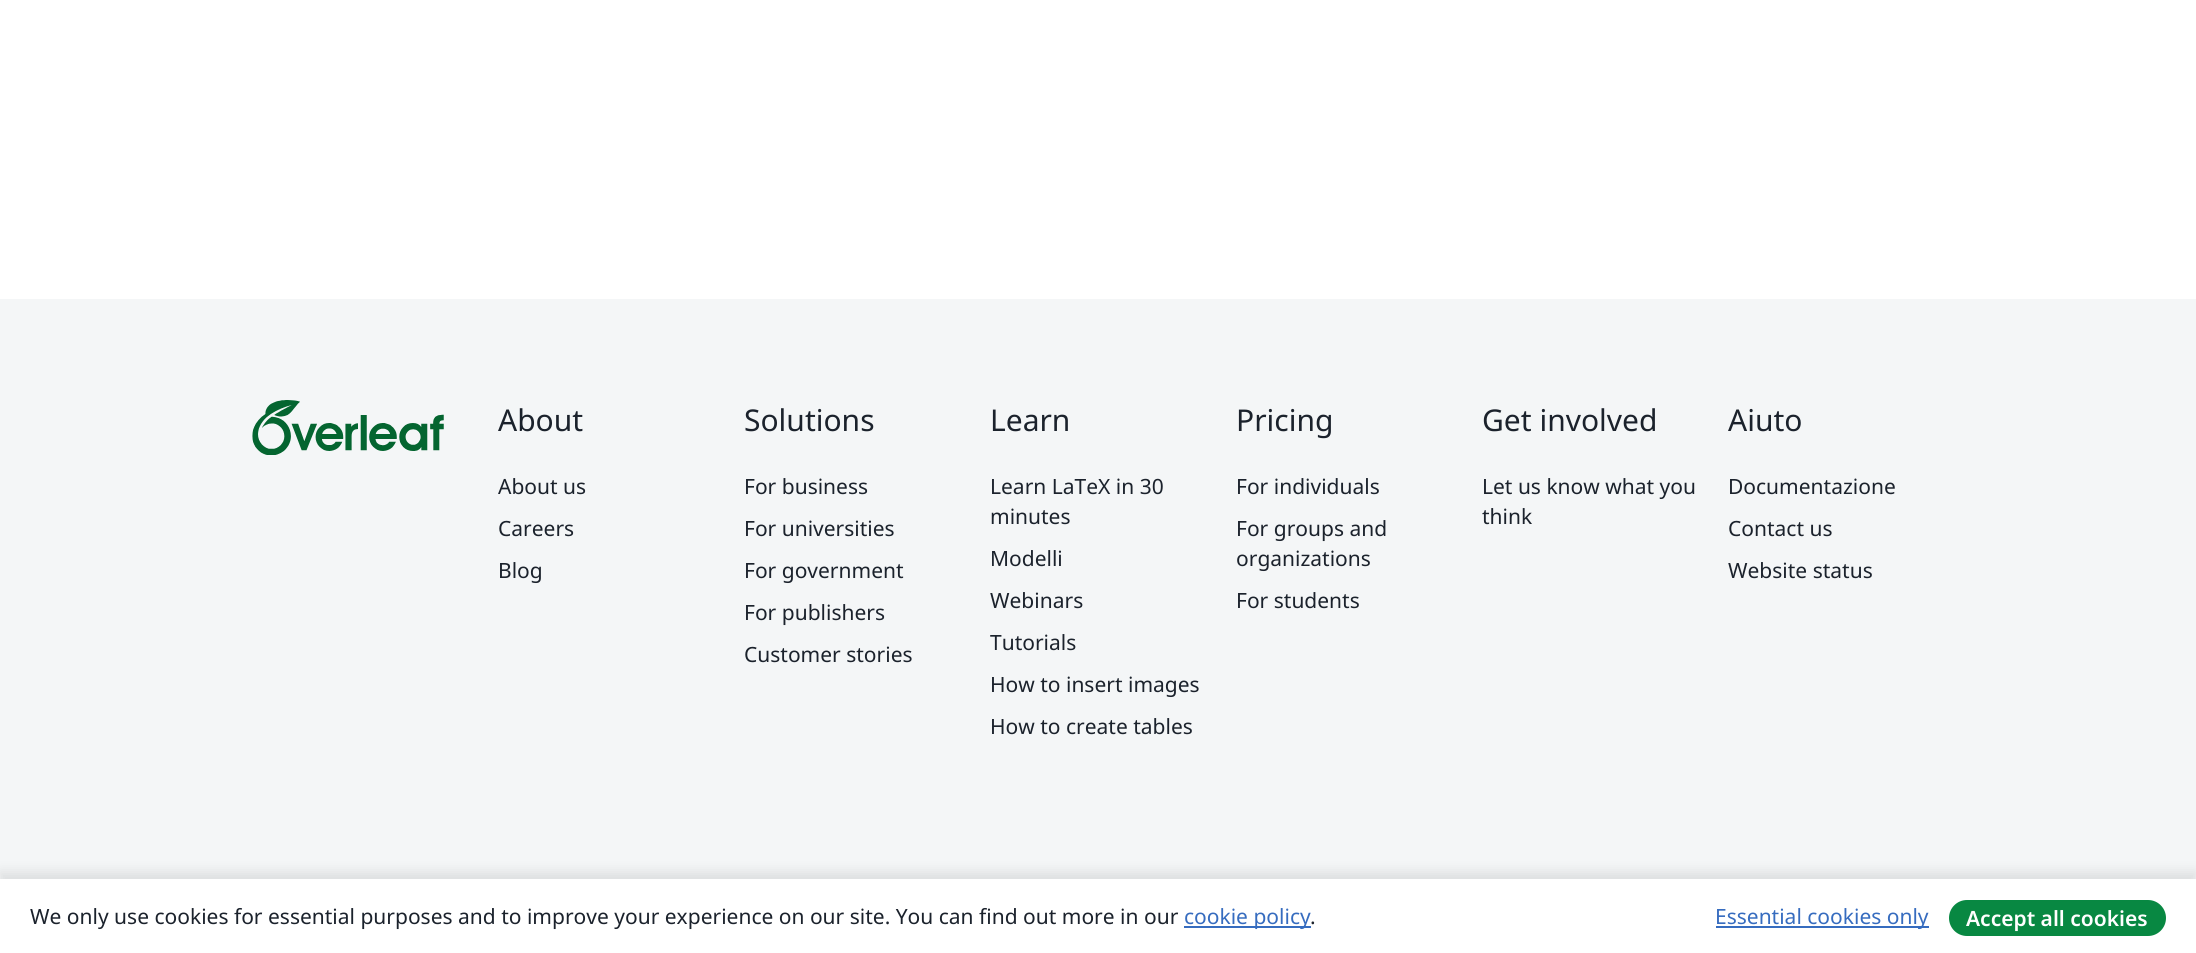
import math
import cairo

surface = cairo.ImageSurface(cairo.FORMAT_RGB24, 2196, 953)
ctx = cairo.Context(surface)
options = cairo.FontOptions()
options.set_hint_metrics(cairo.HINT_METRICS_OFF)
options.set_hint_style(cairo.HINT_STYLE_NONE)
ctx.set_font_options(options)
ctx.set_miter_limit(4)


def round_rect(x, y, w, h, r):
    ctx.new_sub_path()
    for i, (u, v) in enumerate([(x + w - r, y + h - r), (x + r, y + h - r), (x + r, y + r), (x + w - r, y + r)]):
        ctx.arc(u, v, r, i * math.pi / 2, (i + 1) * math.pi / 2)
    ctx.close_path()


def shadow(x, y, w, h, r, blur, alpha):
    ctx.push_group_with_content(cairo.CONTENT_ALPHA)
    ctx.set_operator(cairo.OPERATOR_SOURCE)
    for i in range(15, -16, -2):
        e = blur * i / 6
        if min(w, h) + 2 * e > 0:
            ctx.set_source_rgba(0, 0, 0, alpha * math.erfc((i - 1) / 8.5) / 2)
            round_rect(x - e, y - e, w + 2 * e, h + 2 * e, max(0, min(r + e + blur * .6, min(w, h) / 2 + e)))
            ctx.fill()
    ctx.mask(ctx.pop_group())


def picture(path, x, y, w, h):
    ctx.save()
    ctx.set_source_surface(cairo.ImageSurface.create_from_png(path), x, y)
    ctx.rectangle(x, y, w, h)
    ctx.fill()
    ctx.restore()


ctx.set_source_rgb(1, 1, 1)
ctx.paint()
ctx.set_source_rgb(0.957, 0.961, 0.965)
ctx.rectangle(0, 299, 2196, 580)
ctx.fill()
picture("img1.png", 252, 400, 192, 55)
ctx.select_font_face("Noto Sans")
ctx.set_font_size(30)
ctx.set_source_rgb(0.106, 0.133, 0.173)
ctx.move_to(498, 431)
ctx.show_text("About")
ctx.set_font_size(21)
ctx.move_to(498, 494)
ctx.show_text("About us")
ctx.move_to(498, 536)
ctx.show_text("Careers")
ctx.move_to(498, 578)
ctx.show_text("Blog")
ctx.set_font_size(30)
ctx.move_to(744, 431)
ctx.show_text("Solutions")
ctx.set_font_size(21)
ctx.move_to(744, 494)
ctx.show_text("For business")
ctx.move_to(744, 536)
ctx.show_text("For universities")
ctx.move_to(744, 578)
ctx.show_text("For government")
ctx.move_to(744, 620)
ctx.show_text("For publishers")
ctx.move_to(744, 662)
ctx.show_text("Customer stories")
ctx.set_font_size(30)
ctx.move_to(990, 431)
ctx.show_text("Learn")
ctx.set_font_size(21)
ctx.move_to(990, 494)
ctx.show_text("Learn LaTeX in 30")
ctx.move_to(990, 524)
ctx.show_text("minutes")
ctx.move_to(990, 566)
ctx.show_text("Modelli")
ctx.move_to(990, 608)
ctx.show_text("Webinars")
ctx.move_to(990, 650)
ctx.show_text("Tutorials")
ctx.move_to(990, 692)
ctx.show_text("How to insert images")
ctx.move_to(990, 734)
ctx.show_text("How to create tables")
ctx.set_font_size(30)
ctx.move_to(1236, 431)
ctx.show_text("Pricing")
ctx.set_font_size(21)
ctx.move_to(1236, 494)
ctx.show_text("For individuals")
ctx.move_to(1236, 536)
ctx.show_text("For groups and")
ctx.move_to(1236, 566)
ctx.show_text("organizations")
ctx.move_to(1236, 608)
ctx.show_text("For students")
ctx.set_font_size(30)
ctx.move_to(1482, 431)
ctx.show_text("Get involved")
ctx.set_font_size(21)
ctx.move_to(1482, 494)
ctx.show_text("Let us know what you")
ctx.move_to(1482, 524)
ctx.show_text("think")
ctx.set_font_size(30)
ctx.move_to(1728, 431)
ctx.show_text("Aiuto")
ctx.set_font_size(21)
ctx.move_to(1728, 494)
ctx.show_text("Documentazione")
ctx.move_to(1728, 536)
ctx.show_text("Contact us")
ctx.move_to(1728, 578)
ctx.show_text("Website status")
ctx.set_source_rgb(0, 0, 0)
shadow(0, 872, 2196, 75, 0, 6, 0.1)
ctx.set_source_rgb(1, 1, 1)
ctx.rectangle(0, 879, 2196, 74)
ctx.fill()
ctx.set_source_rgb(0.106, 0.133, 0.173)
ctx.move_to(30, 924)
ctx.show_text("We only use cookies for essential purposes and to improve your experience on our site. You can find out more in our")
ctx.set_source_rgb(0.212, 0.424, 0.749)
ctx.rectangle(1184, 926, 127, 2)
ctx.fill()
ctx.move_to(1184, 924)
ctx.show_text("cookie policy")
ctx.set_source_rgb(0.106, 0.133, 0.173)
ctx.move_to(1310, 924)
ctx.show_text(".")
ctx.set_source_rgb(0.212, 0.424, 0.749)
ctx.rectangle(1716, 926, 213, 2)
ctx.fill()
ctx.move_to(1715, 924)
ctx.show_text("Essential cookies only")
ctx.set_source_rgb(0.035, 0.533, 0.259)
round_rect(1949, 900, 217, 36, 18)
ctx.fill()
ctx.select_font_face("Noto Sans SemiBold")
ctx.set_source_rgb(1, 1, 1)
ctx.move_to(1966, 926)
ctx.show_text("Accept all cookies")
surface.write_to_png("page.png")
